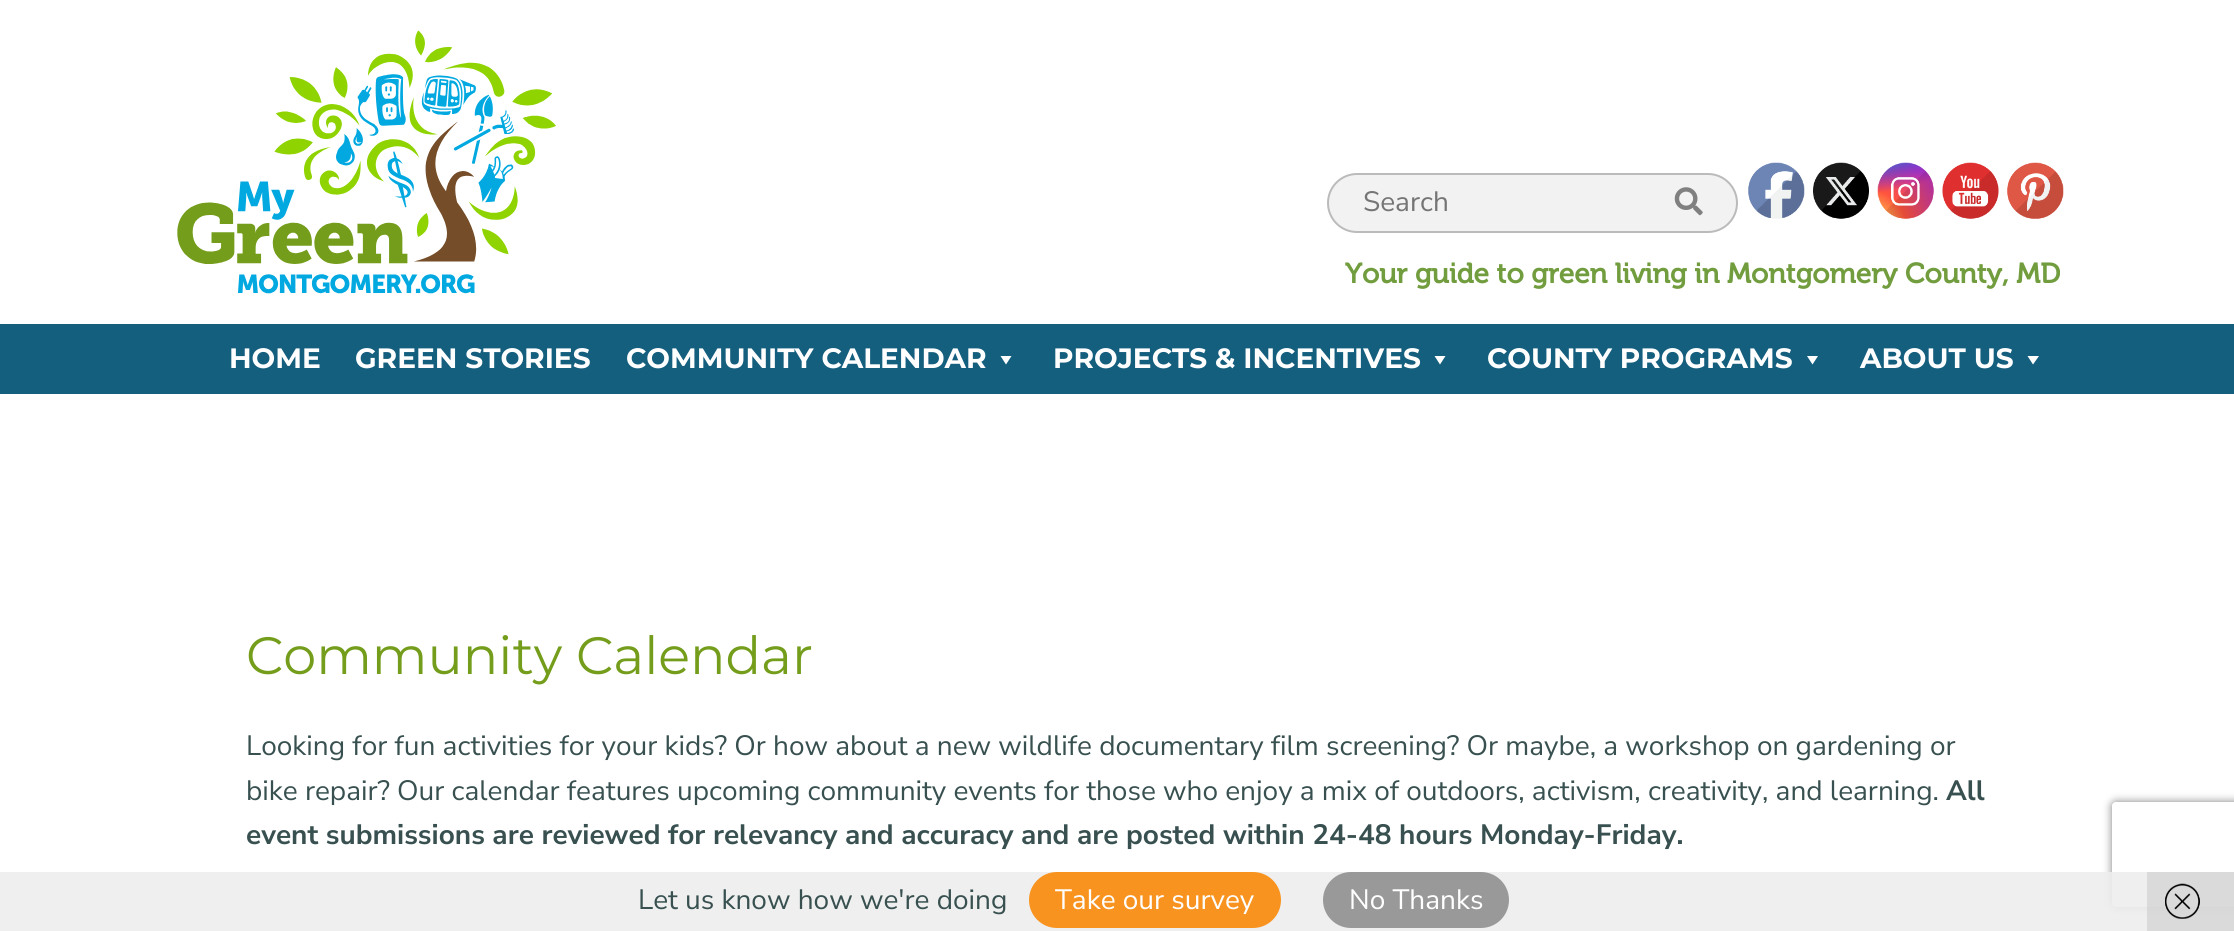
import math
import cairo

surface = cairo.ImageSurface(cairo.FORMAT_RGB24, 2234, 931)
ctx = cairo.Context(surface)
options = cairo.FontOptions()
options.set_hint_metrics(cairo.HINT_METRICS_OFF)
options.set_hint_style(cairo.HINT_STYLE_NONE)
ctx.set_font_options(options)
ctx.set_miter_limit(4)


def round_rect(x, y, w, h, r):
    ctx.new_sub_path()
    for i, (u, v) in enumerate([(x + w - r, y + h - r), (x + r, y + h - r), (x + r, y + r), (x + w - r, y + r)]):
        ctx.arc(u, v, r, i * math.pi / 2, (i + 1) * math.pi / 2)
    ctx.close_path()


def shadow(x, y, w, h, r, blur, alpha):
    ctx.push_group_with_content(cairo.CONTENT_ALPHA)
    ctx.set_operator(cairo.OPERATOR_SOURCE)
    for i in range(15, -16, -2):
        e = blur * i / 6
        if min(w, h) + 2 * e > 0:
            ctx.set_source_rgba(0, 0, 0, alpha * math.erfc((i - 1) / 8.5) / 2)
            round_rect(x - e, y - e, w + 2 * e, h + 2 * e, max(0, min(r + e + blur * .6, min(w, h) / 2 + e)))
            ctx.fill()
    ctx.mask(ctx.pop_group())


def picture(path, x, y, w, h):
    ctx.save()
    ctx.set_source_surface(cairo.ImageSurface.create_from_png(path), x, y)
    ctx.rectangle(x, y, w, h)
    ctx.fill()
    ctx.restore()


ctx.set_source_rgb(1, 1, 1)
ctx.paint()
picture("img1.png", 177, 30, 379, 264)
ctx.set_source_rgb(0.949, 0.949, 0.949)
round_rect(1328, 174, 409, 58, 29)
ctx.fill_preserve()
ctx.set_source_rgb(0.733, 0.733, 0.733)
ctx.stroke()
ctx.select_font_face("Nunito Sans")
ctx.set_font_size(28)
ctx.set_source_rgb(0.459, 0.459, 0.459)
ctx.move_to(1363, 211)
ctx.show_text("Search")
picture("img2.png", 1674, 187, 29, 29)
picture("img3.png", 1748, 162, 57, 57)
picture("img4.png", 1813, 162, 56, 57)
picture("img5.png", 1877, 162, 57, 57)
picture("img6.png", 1942, 162, 57, 57)
picture("img7.png", 2007, 162, 57, 57)
ctx.select_font_face("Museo", cairo.FONT_SLANT_NORMAL, cairo.FONT_WEIGHT_BOLD)
ctx.set_source_rgb(0.447, 0.616, 0.247)
ctx.move_to(1345, 283)
ctx.show_text("Your guide to green living in Montgomery County, MD")
ctx.set_source_rgb(0.082, 0.369, 0.494)
ctx.rectangle(0, 324, 2234, 70)
ctx.fill()
ctx.select_font_face("Montserrat", cairo.FONT_SLANT_NORMAL, cairo.FONT_WEIGHT_BOLD)
ctx.set_source_rgb(1, 1, 1)
ctx.move_to(229, 368)
ctx.show_text("HOME")
ctx.move_to(355, 368)
ctx.show_text("GREEN STORIES")
ctx.move_to(626, 368)
ctx.show_text("COMMUNITY CALENDAR")
ctx.new_path()
ctx.move_to(1011.5, 356)
ctx.line_to(1006, 364.5)
ctx.line_to(1000.5, 356)
ctx.close_path()
ctx.fill()
ctx.move_to(1053, 368)
ctx.show_text("PROJECTS & INCENTIVES")
ctx.new_path()
ctx.move_to(1445.5, 356)
ctx.line_to(1440, 364.5)
ctx.line_to(1434.5, 356)
ctx.close_path()
ctx.fill()
ctx.move_to(1487, 368)
ctx.show_text("COUNTY PROGRAMS")
ctx.new_path()
ctx.move_to(1818, 356)
ctx.line_to(1812.5, 364.5)
ctx.line_to(1807, 356)
ctx.close_path()
ctx.fill()
ctx.move_to(1860, 368)
ctx.show_text("ABOUT US")
ctx.new_path()
ctx.move_to(2039, 356)
ctx.line_to(2033, 364.5)
ctx.line_to(2027.5, 356)
ctx.close_path()
ctx.fill()
ctx.select_font_face("Montserrat")
ctx.set_font_size(52.5)
ctx.set_source_rgb(0.455, 0.616, 0.106)
ctx.move_to(246, 674)
ctx.show_text("Community Calendar")
ctx.select_font_face("Nunito Sans")
ctx.set_font_size(28)
ctx.set_source_rgb(0.22, 0.318, 0.314)
ctx.move_to(246, 755)
ctx.show_text("Looking for fun activities for your kids? Or how about a new wildlife documentary film screening? Or maybe, a workshop on gardening or")
ctx.move_to(246, 800)
ctx.show_text("bike repair? Our calendar features upcoming community events for those who enjoy a mix of outdoors, activism, creativity, and learning.")
ctx.select_font_face("Nunito Sans", cairo.FONT_SLANT_NORMAL, cairo.FONT_WEIGHT_BOLD)
ctx.move_to(1946, 800)
ctx.show_text("All")
ctx.move_to(246, 844)
ctx.show_text("event submissions are reviewed for relevancy and accuracy and are posted within 24-48 hours Monday-Friday.")
ctx.save()
ctx.set_fill_rule(cairo.FILL_RULE_EVEN_ODD)
ctx.new_path()
ctx.move_to(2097, 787)
ctx.line_to(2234, 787)
ctx.line_to(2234, 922)
ctx.line_to(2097, 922)
ctx.close_path()
ctx.move_to(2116, 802)
ctx.line_to(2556, 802)
ctx.curve_to(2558, 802, 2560, 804, 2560, 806)
ctx.line_to(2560, 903)
ctx.curve_to(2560, 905, 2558, 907, 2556, 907)
ctx.line_to(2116, 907)
ctx.curve_to(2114, 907, 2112, 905, 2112, 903)
ctx.line_to(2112, 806)
ctx.curve_to(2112, 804, 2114, 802, 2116, 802)
ctx.close_path()
ctx.clip()
ctx.set_source_rgb(0.502, 0.502, 0.502)
shadow(2112, 802, 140, 105, 4, 4.5, 1)
ctx.restore()
ctx.set_source_rgba(0.933, 0.933, 0.933, 0.9)
ctx.rectangle(0, 872, 2234, 59)
ctx.fill()
ctx.select_font_face("Nunito Sans")
ctx.set_source_rgb(0.22, 0.318, 0.314)
ctx.move_to(638, 909)
ctx.show_text("Let us know how we're doing")
ctx.set_source_rgb(0.969, 0.576, 0.122)
round_rect(1029, 872, 252, 56, 28)
ctx.fill()
ctx.set_source_rgb(1, 1, 1)
ctx.move_to(1055, 909)
ctx.show_text("Take our survey")
ctx.set_source_rgb(0.6, 0.6, 0.6)
round_rect(1323, 872, 186, 56, 28)
ctx.fill()
ctx.set_source_rgb(1, 1, 1)
ctx.move_to(1349, 909)
ctx.show_text("No Thanks")
ctx.set_source_rgba(0.8, 0.8, 0.8, 0.6)
ctx.rectangle(2147, 872, 87, 59)
ctx.fill()
picture("img8.png", 2165, 883, 35, 36)
surface.write_to_png("page.png")
